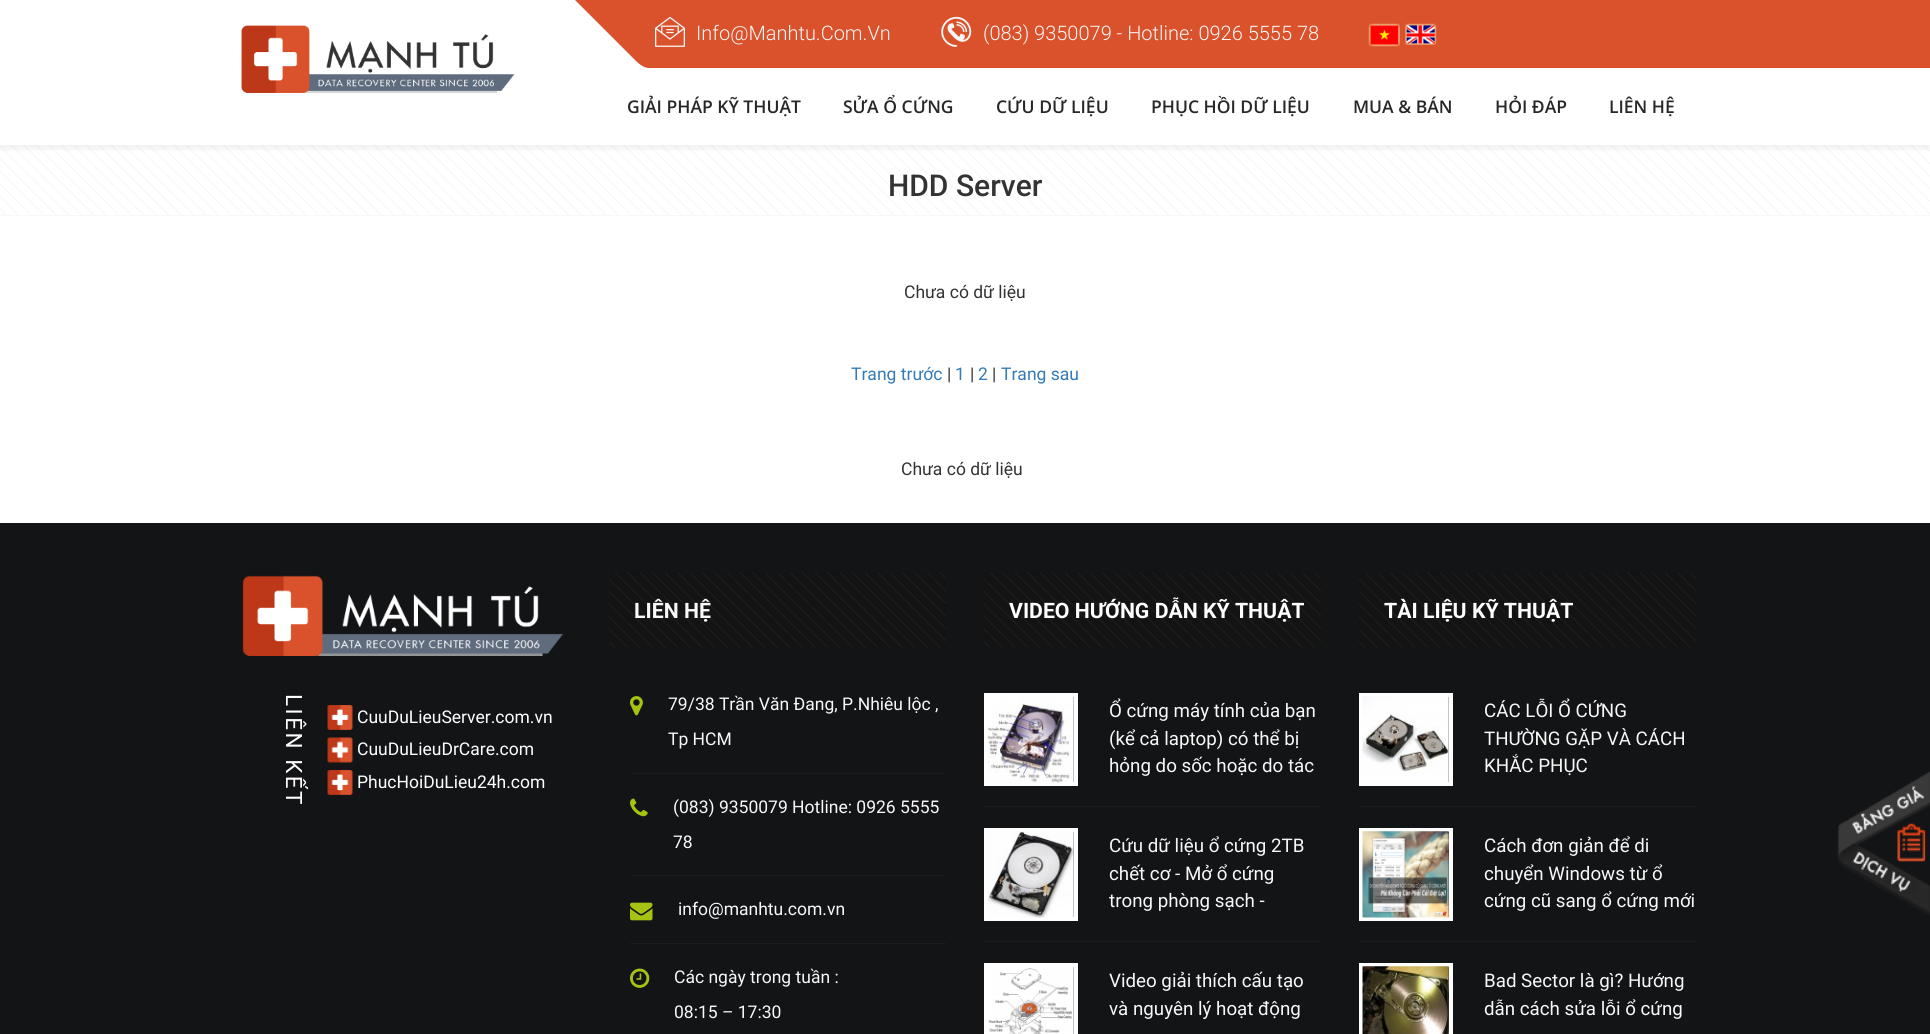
import math
import cairo

surface = cairo.ImageSurface(cairo.FORMAT_RGB24, 1930, 1034)
ctx = cairo.Context(surface)
options = cairo.FontOptions()
options.set_hint_metrics(cairo.HINT_METRICS_OFF)
options.set_hint_style(cairo.HINT_STYLE_NONE)
ctx.set_font_options(options)
ctx.set_miter_limit(4)


def spaced_text(x, y, s, letter, word):
    ctx.move_to(x, y)
    for ch in s:
        ctx.show_text(ch)
        ctx.rel_move_to(letter + word * (ch == ' '), 0)


def round_rect(x, y, w, h, r):
    ctx.new_sub_path()
    for i, (u, v) in enumerate([(x + w - r, y + h - r), (x + r, y + h - r), (x + r, y + r), (x + w - r, y + r)]):
        ctx.arc(u, v, r, i * math.pi / 2, (i + 1) * math.pi / 2)
    ctx.close_path()


def shadow(x, y, w, h, r, blur, alpha):
    ctx.push_group_with_content(cairo.CONTENT_ALPHA)
    ctx.set_operator(cairo.OPERATOR_SOURCE)
    for i in range(15, -16, -2):
        e = blur * i / 6
        if min(w, h) + 2 * e > 0:
            ctx.set_source_rgba(0, 0, 0, alpha * math.erfc((i - 1) / 8.5) / 2)
            round_rect(x - e, y - e, w + 2 * e, h + 2 * e, max(0, min(r + e + blur * .6, min(w, h) / 2 + e)))
            ctx.fill()
    ctx.mask(ctx.pop_group())


def picture(path, x, y, w, h):
    ctx.save()
    ctx.set_source_surface(cairo.ImageSurface.create_from_png(path), x, y)
    ctx.rectangle(x, y, w, h)
    ctx.fill()
    ctx.restore()


ctx.set_source_rgb(1, 1, 1)
ctx.paint()
picture("img6.png", 0, 145, 1930, 70)
ctx.save()
ctx.rectangle(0, 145, 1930, 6)
ctx.clip()
ctx.set_source_rgb(0, 0, 0)
shadow(0, 1, 1930, 145, 0, 5.5, 0.1)
ctx.restore()
ctx.set_source_rgb(0.855, 0.322, 0.173)
ctx.new_path()
ctx.move_to(575, 0)
ctx.line_to(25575, 0)
ctx.line_to(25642, 68)
ctx.line_to(649, 68)
ctx.curve_to(645, 68, 640, 65, 636, 61)
ctx.close_path()
ctx.fill()
picture("img1.png", 655, 16, 30, 31)
ctx.select_font_face("Roboto Light")
ctx.set_font_size(20)
ctx.set_source_rgb(0.969, 0.969, 0.969)
ctx.move_to(696, 40)
ctx.show_text("Info@Manhtu.Com.Vn")
picture("img2.png", 941, 16, 31, 31)
ctx.move_to(983, 40)
ctx.show_text("(083) 9350079 - Hotline: 0926 5555 78")
picture("img3.png", 1368, 23, 32, 24)
picture("img4.png", 1405, 23, 32, 22)
picture("img5.png", 241, 25, 274, 68)
ctx.select_font_face("Open Sans SemiBold")
ctx.set_font_size(17.5)
ctx.set_source_rgb(0.153, 0.153, 0.153)
ctx.move_to(627, 113)
ctx.show_text("GIẢI PHÁP KỸ THUẬT")
ctx.move_to(843, 113)
ctx.show_text("SỬA Ổ CỨNG")
ctx.move_to(996, 113)
ctx.show_text("CỨU DỮ LIỆU")
ctx.move_to(1151, 113)
ctx.show_text("PHỤC HỒI DỮ LIỆU")
ctx.move_to(1353, 113)
ctx.show_text("MUA & BÁN")
ctx.move_to(1495, 113)
ctx.show_text("HỎI ĐÁP")
ctx.move_to(1609, 113)
ctx.show_text("LIÊN HỆ")
ctx.set_source_rgb(0.969, 0.969, 0.969)
ctx.rectangle(0, 215, 1930, 1)
ctx.fill()
ctx.select_font_face("Roboto Medium")
ctx.set_font_size(30)
ctx.set_source_rgb(0.2, 0.2, 0.2)
ctx.move_to(888, 196)
ctx.show_text("HDD Server")
ctx.select_font_face("Roboto")
ctx.set_font_size(17.5)
ctx.move_to(904, 298)
ctx.show_text("Chưa có dữ liệu")
ctx.set_source_rgb(0.2, 0.478, 0.718)
ctx.move_to(851, 380)
ctx.show_text("Trang trước")
ctx.set_source_rgb(0.2, 0.2, 0.2)
ctx.move_to(947, 380)
ctx.show_text("|")
ctx.set_source_rgb(0.2, 0.478, 0.718)
ctx.move_to(955, 380)
ctx.show_text("1")
ctx.set_source_rgb(0.2, 0.2, 0.2)
ctx.move_to(970, 380)
ctx.show_text("|")
ctx.set_source_rgb(0.2, 0.478, 0.718)
ctx.move_to(978, 380)
ctx.show_text("2")
ctx.set_source_rgb(0.2, 0.2, 0.2)
ctx.move_to(992, 380)
ctx.show_text("|")
ctx.set_source_rgb(0.2, 0.478, 0.718)
ctx.move_to(1001, 380)
ctx.show_text("Trang sau")
ctx.set_source_rgb(0.2, 0.2, 0.2)
ctx.move_to(901, 475)
ctx.show_text("Chưa có dữ liệu")
ctx.set_source_rgb(0.078, 0.082, 0.086)
ctx.rectangle(0, 523, 1930, 511)
ctx.fill()
picture("img7.png", 242, 575, 321, 81)
ctx.set_font_size(22.5)
ctx.set_source_rgb(1, 1, 1)
ctx.save()
ctx.translate(286, 694)
ctx.rotate(90 * math.pi / 180)
spaced_text(0, 0, "LIÊN KẾT", 2.5, 0)
ctx.restore()
picture("img8.png", 327, 705, 26, 25)
ctx.set_font_size(17.5)
ctx.move_to(357, 723)
ctx.show_text("CuuDuLieuServer.com.vn")
picture("img9.png", 327, 737, 26, 26)
ctx.move_to(357, 755)
ctx.show_text("CuuDuLieuDrCare.com")
picture("img8.png", 327, 770, 26, 25)
ctx.move_to(357, 788)
ctx.show_text("PhucHoiDuLieu24h.com")
picture("img10.png", 609, 572, 337, 76)
ctx.select_font_face("Roboto", cairo.FONT_SLANT_NORMAL, cairo.FONT_WEIGHT_BOLD)
ctx.set_font_size(21.25)
ctx.set_source_rgb(0.969, 0.969, 0.969)
ctx.move_to(634, 618)
ctx.show_text("LIÊN HỆ")
ctx.set_source_rgb(0.11, 0.11, 0.11)
ctx.rectangle(630, 773, 316, 1)
ctx.fill()
picture("img11.png", 630, 696, 13, 20)
ctx.select_font_face("Roboto")
ctx.set_font_size(17.5)
ctx.set_source_rgb(0.969, 0.969, 0.969)
ctx.move_to(668, 710)
ctx.show_text("79/38 Trần Văn Đang, P.Nhiêu lộc ,")
ctx.move_to(668, 745)
ctx.show_text("Tp HCM")
ctx.set_source_rgb(0.11, 0.11, 0.11)
ctx.rectangle(630, 875, 316, 1)
ctx.fill()
picture("img12.png", 630, 798, 18, 19)
ctx.set_source_rgb(0.969, 0.969, 0.969)
ctx.move_to(673, 813)
ctx.show_text("(083) 9350079 Hotline: 0926 5555")
ctx.move_to(673, 848)
ctx.show_text("78")
ctx.set_source_rgb(0.11, 0.11, 0.11)
ctx.rectangle(630, 943, 316, 1)
ctx.fill()
picture("img13.png", 630, 902, 23, 19)
ctx.set_source_rgb(0.969, 0.969, 0.969)
ctx.move_to(678, 915)
ctx.show_text("info@manhtu.com.vn")
picture("img14.png", 630, 968, 20, 20)
ctx.move_to(674, 983)
ctx.show_text("Các ngày trong tuần :")
ctx.move_to(674, 1018)
ctx.show_text("08:15 – 17:30")
picture("img15.png", 984, 572, 337, 76)
ctx.select_font_face("Roboto", cairo.FONT_SLANT_NORMAL, cairo.FONT_WEIGHT_BOLD)
ctx.set_font_size(21.25)
ctx.set_source_rgb(1, 1, 1)
ctx.move_to(1009, 618)
ctx.show_text("VIDEO HƯỚNG DẪN KỸ THUẬT")
ctx.set_source_rgb(0.11, 0.11, 0.11)
ctx.rectangle(984, 806, 337, 1)
ctx.fill()
ctx.rectangle(986, 695, 90, 89)
ctx.set_source_rgb(1, 1, 1)
ctx.set_line_width(4)
ctx.stroke()
picture("img16.png", 987, 697, 87, 86)
ctx.select_font_face("Roboto")
ctx.set_font_size(18.75)
ctx.set_source_rgb(0.969, 0.969, 0.969)
ctx.move_to(1109, 717)
ctx.show_text("Ổ cứng máy tính của bạn")
ctx.move_to(1109, 745)
ctx.show_text("(kể cả laptop) có thể bị")
ctx.move_to(1109, 772)
ctx.show_text("hỏng do sốc hoặc do tác")
ctx.set_source_rgb(0.11, 0.11, 0.11)
ctx.rectangle(984, 941, 337, 1)
ctx.fill()
ctx.rectangle(986, 830, 90, 89)
ctx.set_source_rgb(1, 1, 1)
ctx.stroke()
picture("img17.png", 987, 831, 87, 87)
ctx.set_source_rgb(0.969, 0.969, 0.969)
ctx.move_to(1109, 852)
ctx.show_text("Cứu dữ liệu ổ cứng 2TB")
ctx.move_to(1109, 880)
ctx.show_text("chết cơ - Mở ổ cứng")
ctx.move_to(1109, 907)
ctx.show_text("trong phòng sạch -")
ctx.rectangle(986, 965, 90, 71)
ctx.set_source_rgb(1, 1, 1)
ctx.stroke()
picture("img18.png", 988, 967, 86, 67)
ctx.set_source_rgb(0.969, 0.969, 0.969)
ctx.move_to(1109, 987)
ctx.show_text("Video giải thích cấu tạo")
ctx.move_to(1109, 1015)
ctx.show_text("và nguyên lý hoạt động")
picture("img19.png", 1359, 572, 337, 76)
ctx.select_font_face("Roboto", cairo.FONT_SLANT_NORMAL, cairo.FONT_WEIGHT_BOLD)
ctx.set_font_size(21.25)
ctx.set_source_rgb(1, 1, 1)
ctx.move_to(1384, 618)
ctx.show_text("TÀI LIỆU KỸ THUẬT")
ctx.set_source_rgb(0.11, 0.11, 0.11)
ctx.rectangle(1359, 806, 337, 1)
ctx.fill()
ctx.rectangle(1361, 695, 90, 89)
ctx.set_source_rgb(1, 1, 1)
ctx.stroke()
picture("img20.png", 1362, 696, 87, 86)
ctx.select_font_face("Roboto")
ctx.set_font_size(18.75)
ctx.set_source_rgb(0.969, 0.969, 0.969)
ctx.move_to(1484, 717)
ctx.show_text("CÁC LỖI Ổ CỨNG")
ctx.move_to(1484, 745)
ctx.show_text("THƯỜNG GẶP VÀ CÁCH")
ctx.move_to(1484, 772)
ctx.show_text("KHẮC PHỤC")
ctx.set_source_rgb(0.11, 0.11, 0.11)
ctx.rectangle(1359, 941, 337, 1)
ctx.fill()
ctx.rectangle(1361, 830, 90, 89)
ctx.set_source_rgb(1, 1, 1)
ctx.stroke()
picture("img21.png", 1362, 831, 87, 87)
ctx.set_source_rgb(0.969, 0.969, 0.969)
ctx.move_to(1484, 852)
ctx.show_text("Cách đơn giản để di")
ctx.move_to(1484, 880)
ctx.show_text("chuyển Windows từ ổ")
ctx.move_to(1484, 907)
ctx.show_text("cứng cũ sang ổ cứng mới")
ctx.rectangle(1361, 965, 90, 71)
ctx.set_source_rgb(1, 1, 1)
ctx.stroke()
picture("img22.png", 1362, 966, 87, 68)
ctx.set_source_rgb(0.969, 0.969, 0.969)
ctx.move_to(1484, 987)
ctx.show_text("Bad Sector là gì? Hướng")
ctx.move_to(1484, 1015)
ctx.show_text("dẫn cách sửa lỗi ổ cứng")
picture("img23.png", 1837, 771, 93, 144)
surface.write_to_png("page.png")
